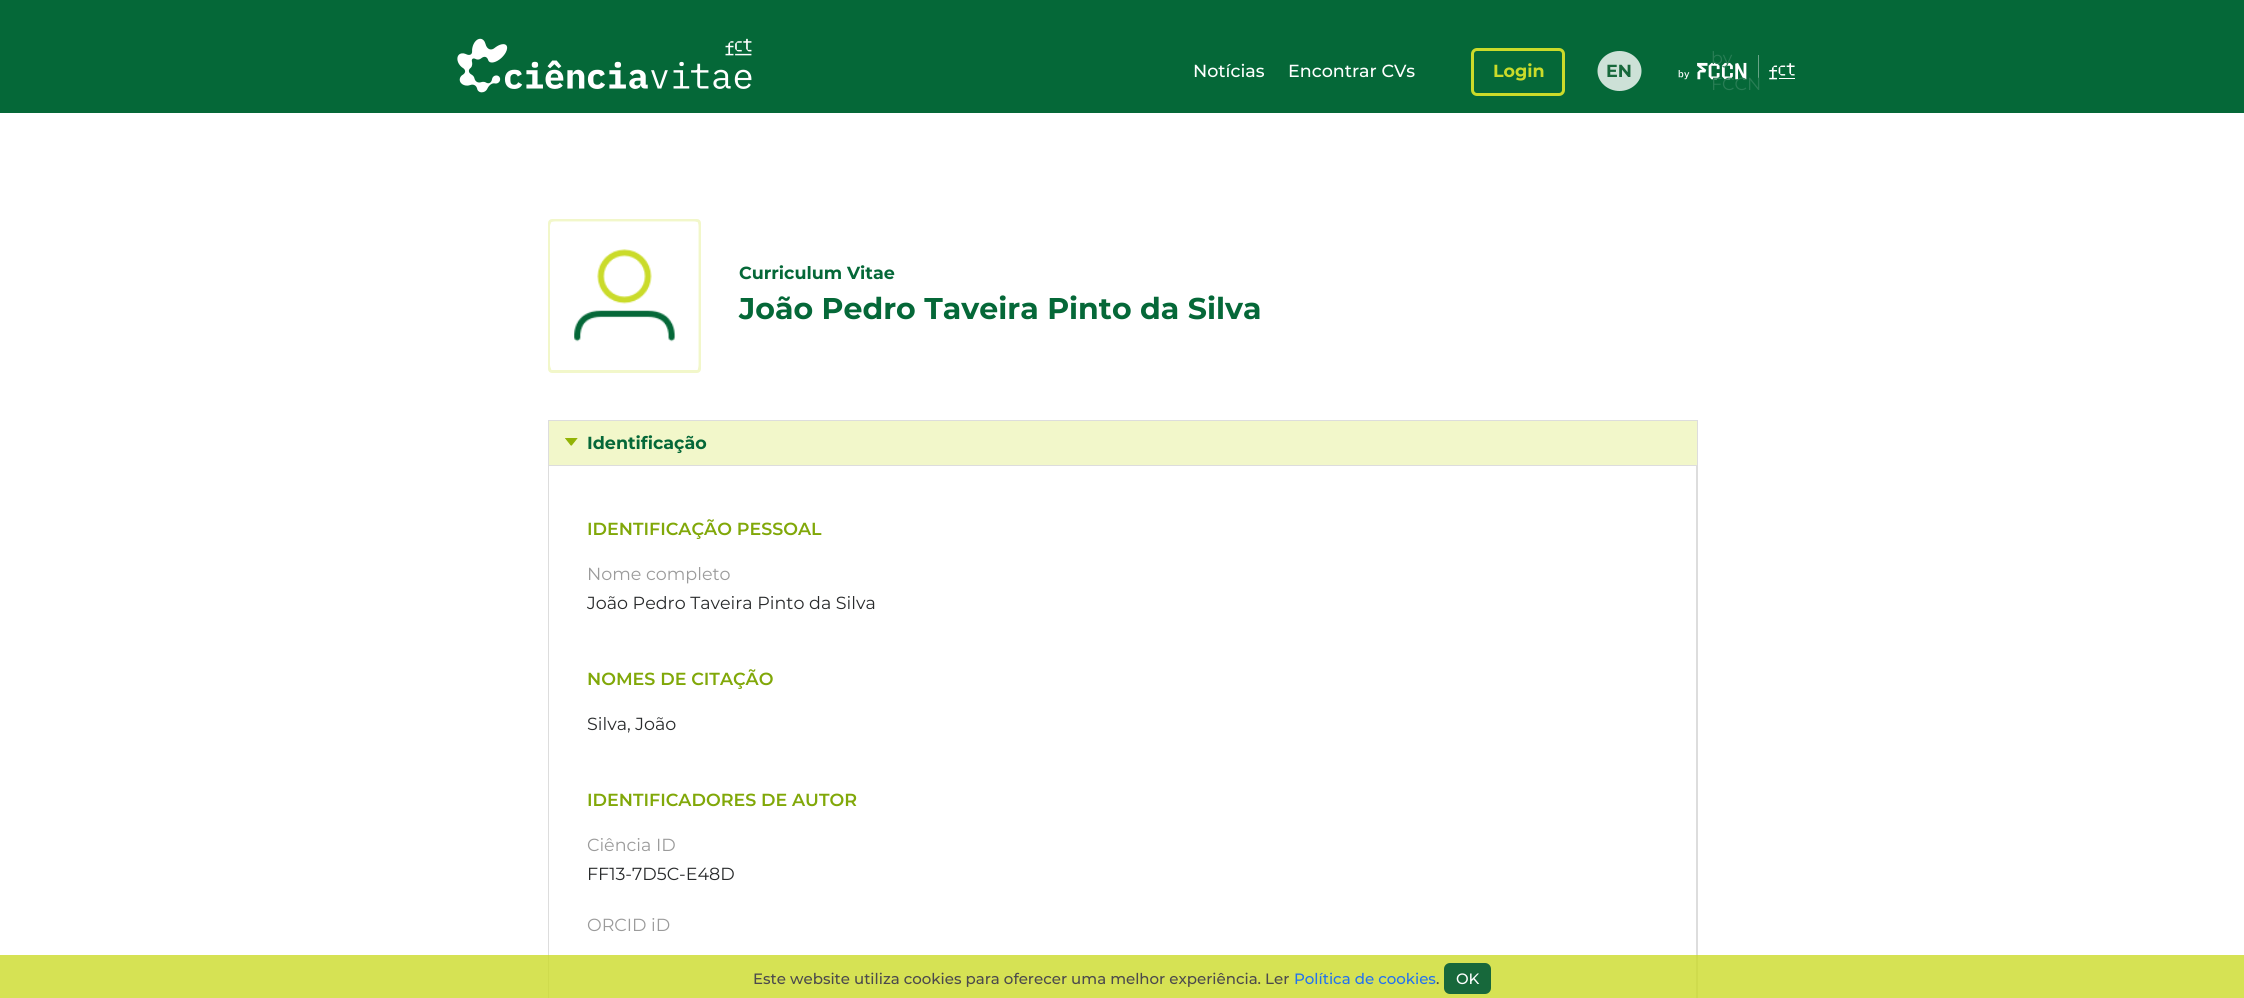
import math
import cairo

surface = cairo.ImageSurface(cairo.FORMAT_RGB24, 2244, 998)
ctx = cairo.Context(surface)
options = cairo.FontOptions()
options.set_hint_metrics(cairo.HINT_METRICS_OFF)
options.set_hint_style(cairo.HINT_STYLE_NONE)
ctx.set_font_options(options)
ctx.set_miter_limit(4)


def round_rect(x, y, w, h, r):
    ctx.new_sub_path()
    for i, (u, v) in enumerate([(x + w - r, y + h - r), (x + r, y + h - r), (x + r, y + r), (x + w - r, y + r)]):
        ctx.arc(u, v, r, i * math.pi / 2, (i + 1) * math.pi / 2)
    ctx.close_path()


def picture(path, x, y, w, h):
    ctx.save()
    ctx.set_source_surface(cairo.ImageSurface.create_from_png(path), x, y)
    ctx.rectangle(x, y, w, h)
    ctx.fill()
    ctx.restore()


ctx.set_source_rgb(1, 1, 1)
ctx.paint()
ctx.set_source_rgb(0.02, 0.408, 0.22)
ctx.rectangle(0, 0, 2244, 113)
ctx.fill()
picture("img1.png", 457, 38, 295, 55)
ctx.select_font_face("Montserrat Medium")
ctx.set_font_size(17.5)
ctx.set_source_rgb(1, 1, 1)
ctx.move_to(1193, 77)
ctx.show_text("Notícias")
ctx.move_to(1288, 77)
ctx.show_text("Encontrar CVs")
round_rect(1472.5, 49.5, 91, 45, 4.5)
ctx.set_source_rgb(0.796, 0.859, 0.165)
ctx.set_line_width(3)
ctx.stroke()
ctx.select_font_face("Montserrat", cairo.FONT_SLANT_NORMAL, cairo.FONT_WEIGHT_BOLD)
ctx.move_to(1493, 77)
ctx.show_text("Login")
ctx.set_source_rgb(0.804, 0.882, 0.843)
ctx.new_path()
ctx.move_to(1619.5, 51)
ctx.curve_to(1631.5, 51, 1641.5, 60, 1641.5, 71)
ctx.curve_to(1641.5, 82, 1631.5, 91, 1619.5, 91)
ctx.curve_to(1607.5, 91, 1597.5, 82, 1597.5, 71)
ctx.curve_to(1597.5, 60, 1607.5, 51, 1619.5, 51)
ctx.close_path()
ctx.fill()
ctx.set_source_rgb(0.09, 0.408, 0.231)
ctx.move_to(1606, 77)
ctx.show_text("EN")
picture("img2.png", 1678, 55, 117, 32)
ctx.select_font_face("Montserrat")
ctx.set_source_rgb(0.157, 0.49, 0.329)
ctx.move_to(1711, 64)
ctx.show_text("by")
ctx.move_to(1711, 90)
ctx.show_text("FCCN")
round_rect(549.5, 220.5, 150, 151, 2.5)
ctx.set_source_rgb(0.949, 0.965, 0.792)
ctx.stroke()
picture("img3.png", 550, 221, 149, 148)
ctx.select_font_face("Montserrat", cairo.FONT_SLANT_NORMAL, cairo.FONT_WEIGHT_BOLD)
ctx.set_source_rgb(0.02, 0.408, 0.22)
ctx.move_to(739, 279)
ctx.show_text("Curriculum Vitae")
ctx.set_font_size(30)
ctx.move_to(739, 319)
ctx.show_text("João Pedro Taveira Pinto da Silva")
ctx.set_source_rgb(0.949, 0.965, 0.792)
ctx.rectangle(548.5, 420.5, 1149, 45)
ctx.fill_preserve()
ctx.set_source_rgb(0.867, 0.867, 0.867)
ctx.set_line_width(1)
ctx.stroke()
picture("img4.png", 565, 438, 13, 8)
ctx.set_font_size(17.5)
ctx.set_source_rgb(0.02, 0.408, 0.22)
ctx.move_to(587, 449)
ctx.show_text("Identificação")
ctx.set_source_rgb(0.867, 0.867, 0.867)
ctx.set_fill_rule(cairo.FILL_RULE_EVEN_ODD)
ctx.new_path()
ctx.move_to(548, 466)
ctx.line_to(1698, 466)
ctx.line_to(1698, 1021)
ctx.curve_to(1698, 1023, 1696, 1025, 1694, 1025)
ctx.line_to(551, 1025)
ctx.curve_to(549, 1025, 548, 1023, 548, 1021)
ctx.close_path()
ctx.move_to(549, 466)
ctx.line_to(1696, 466)
ctx.line_to(1696, 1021)
ctx.curve_to(1696, 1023, 1695, 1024, 1694, 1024)
ctx.line_to(551, 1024)
ctx.curve_to(550, 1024, 549, 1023, 549, 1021)
ctx.close_path()
ctx.fill()
ctx.select_font_face("Montserrat SemiBold")
ctx.set_source_rgb(0.506, 0.659, 0.039)
ctx.move_to(587, 535)
ctx.show_text("IDENTIFICAÇÃO PESSOAL")
ctx.select_font_face("Montserrat")
ctx.set_source_rgb(0.608, 0.608, 0.608)
ctx.move_to(587, 580)
ctx.show_text("Nome completo")
ctx.set_source_rgb(0.161, 0.169, 0.173)
ctx.move_to(587, 609)
ctx.show_text("João Pedro Taveira Pinto da Silva")
ctx.select_font_face("Montserrat SemiBold")
ctx.set_source_rgb(0.506, 0.659, 0.039)
ctx.move_to(587, 685)
ctx.show_text("NOMES DE CITAÇÃO")
ctx.select_font_face("Montserrat")
ctx.set_source_rgb(0.161, 0.169, 0.173)
ctx.move_to(587, 730)
ctx.show_text("Silva, João")
ctx.select_font_face("Montserrat SemiBold")
ctx.set_source_rgb(0.506, 0.659, 0.039)
ctx.move_to(587, 806)
ctx.show_text("IDENTIFICADORES DE AUTOR")
ctx.select_font_face("Montserrat")
ctx.set_source_rgb(0.608, 0.608, 0.608)
ctx.move_to(587, 851)
ctx.show_text("Ciência ID")
ctx.set_source_rgb(0.161, 0.169, 0.173)
ctx.move_to(587, 880)
ctx.show_text("FF13-7D5C-E48D")
ctx.set_source_rgb(0.608, 0.608, 0.608)
ctx.move_to(587, 931)
ctx.show_text("ORCID iD")
ctx.set_source_rgba(0.796, 0.859, 0.165, 0.8)
ctx.rectangle(0, 955, 2244, 43)
ctx.fill()
ctx.select_font_face("Montserrat Medium")
ctx.set_font_size(15)
ctx.set_source_rgb(0.298, 0.29, 0.298)
ctx.move_to(753, 984)
ctx.show_text("Este website utiliza cookies para oferecer uma melhor experiência. Ler")
ctx.set_source_rgb(0.141, 0.447, 0.933)
ctx.move_to(1294, 984)
ctx.show_text("Política de cookies")
ctx.set_source_rgb(0.298, 0.29, 0.298)
ctx.move_to(1436, 984)
ctx.show_text(".")
ctx.set_source_rgb(0.09, 0.408, 0.231)
round_rect(1444, 963, 47, 31, 6)
ctx.fill()
ctx.set_source_rgb(1, 1, 1)
ctx.move_to(1456, 984)
ctx.show_text("OK")
surface.write_to_png("page.png")
